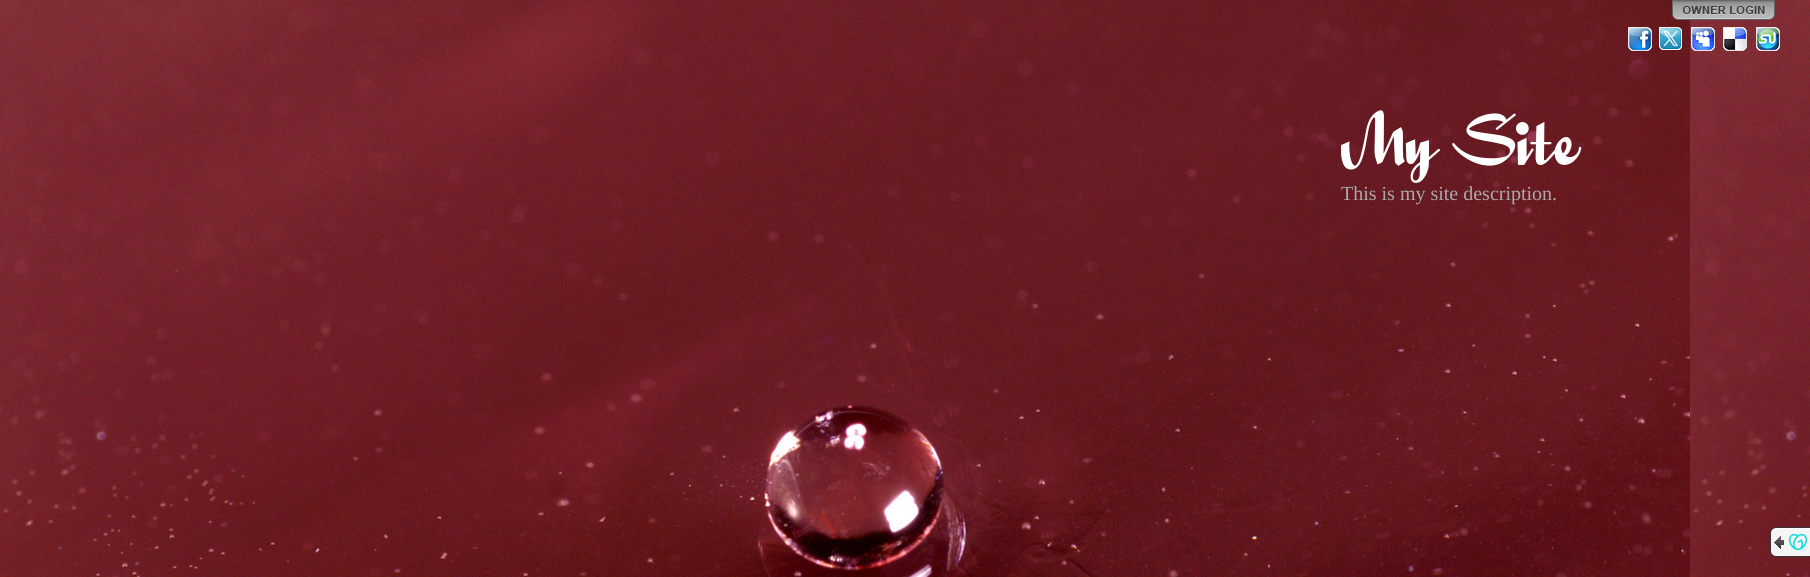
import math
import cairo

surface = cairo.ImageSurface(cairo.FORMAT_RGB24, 1810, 577)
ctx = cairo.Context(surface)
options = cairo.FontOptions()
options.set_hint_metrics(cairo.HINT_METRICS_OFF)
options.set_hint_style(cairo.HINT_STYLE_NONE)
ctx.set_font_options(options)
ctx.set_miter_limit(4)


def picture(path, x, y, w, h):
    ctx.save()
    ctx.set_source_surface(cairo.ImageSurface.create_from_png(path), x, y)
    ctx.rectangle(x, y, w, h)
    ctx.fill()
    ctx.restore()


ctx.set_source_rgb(1, 1, 1)
ctx.paint()
picture("img1.png", 0, 0, 1810, 577)
picture("img2.png", 1672, 0, 103, 20)
picture("img3.png", 1628, 27, 24, 24)
picture("img4.png", 1659, 27, 23, 23)
picture("img5.png", 1691, 27, 24, 24)
picture("img6.png", 1723, 27, 24, 24)
picture("img7.png", 1756, 27, 24, 24)
ctx.select_font_face("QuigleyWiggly")
ctx.set_font_size(80)
ctx.set_source_rgb(1, 1, 1)
ctx.move_to(1341, 167)
ctx.show_text("My Site")
ctx.select_font_face("Liberation Serif")
ctx.set_font_size(20)
ctx.set_source_rgb(0.667, 0.667, 0.667)
ctx.move_to(1341, 200)
ctx.show_text("This is my site description.")
picture("img8.png", 1773, 527, 37, 30)
picture("img9.png", 1770, 528, 14, 28)
picture("img10.png", 1788, 533, 20, 18)
surface.write_to_png("page.png")
